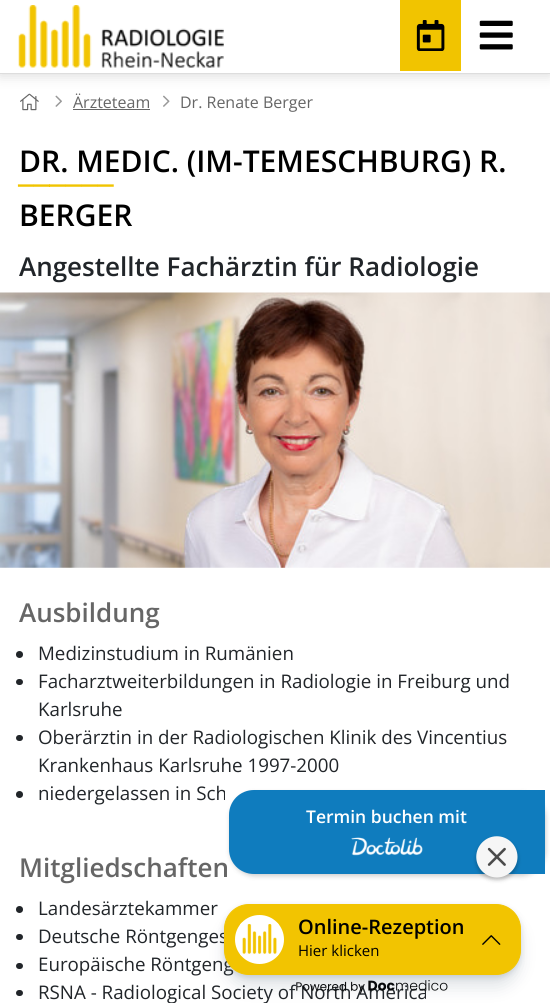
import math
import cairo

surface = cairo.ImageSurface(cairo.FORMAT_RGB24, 550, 1003)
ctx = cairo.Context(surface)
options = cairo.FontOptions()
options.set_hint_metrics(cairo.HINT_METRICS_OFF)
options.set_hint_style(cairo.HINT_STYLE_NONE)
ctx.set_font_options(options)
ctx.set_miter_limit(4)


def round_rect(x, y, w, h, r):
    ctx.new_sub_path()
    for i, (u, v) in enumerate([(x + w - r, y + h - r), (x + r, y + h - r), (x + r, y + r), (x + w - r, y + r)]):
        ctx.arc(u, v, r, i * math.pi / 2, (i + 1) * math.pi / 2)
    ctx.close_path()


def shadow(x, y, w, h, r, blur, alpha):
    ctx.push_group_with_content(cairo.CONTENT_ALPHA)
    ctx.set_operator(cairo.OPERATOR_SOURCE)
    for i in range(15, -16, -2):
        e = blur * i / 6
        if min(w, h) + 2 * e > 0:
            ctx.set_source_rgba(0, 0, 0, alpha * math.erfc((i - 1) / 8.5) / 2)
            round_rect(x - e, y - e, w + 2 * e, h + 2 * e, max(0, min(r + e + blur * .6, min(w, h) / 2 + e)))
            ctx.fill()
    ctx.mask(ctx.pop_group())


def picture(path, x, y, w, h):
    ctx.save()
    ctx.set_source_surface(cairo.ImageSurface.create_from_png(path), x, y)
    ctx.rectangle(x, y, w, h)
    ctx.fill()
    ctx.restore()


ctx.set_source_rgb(1, 1, 1)
ctx.paint()
picture("img1.png", 20, 93, 19, 18)
picture("img2.png", 55, 95, 7, 12)
ctx.select_font_face("Open Sans")
ctx.set_font_size(16)
ctx.set_source_rgb(0.4, 0.4, 0.4)
ctx.move_to(73, 108)
ctx.show_text("Ärzteteam")
ctx.rectangle(73, 109, 77, 1)
ctx.fill()
picture("img3.png", 163, 95, 7, 12)
ctx.move_to(180, 108)
ctx.show_text("Dr. Renate Berger")
picture("img4.png", 0, 567, 550, 1)
ctx.select_font_face("Open Sans SemiBold")
ctx.set_font_size(30)
ctx.set_source_rgb(0, 0, 0)
ctx.move_to(19, 172)
ctx.show_text("DR. MEDIC. (IM-TEMESCHBURG) R.")
ctx.set_font_size(37.5)
ctx.set_source_rgb(0.945, 0.769, 0)
ctx.move_to(18, 181)
ctx.show_text("______")
ctx.set_font_size(30)
ctx.set_source_rgb(0, 0, 0)
ctx.move_to(19, 226)
ctx.show_text("BERGER")
ctx.set_font_size(26)
ctx.set_source_rgb(0.129, 0.145, 0.161)
ctx.move_to(19, 276)
ctx.show_text("Angestellte Fachärztin für Radiologie")
picture("img5.png", 0, 292, 550, 276)
ctx.set_source_rgb(0.4, 0.4, 0.4)
ctx.move_to(19, 622)
ctx.show_text("Ausbildung")
ctx.set_source_rgb(0.129, 0.145, 0.161)
ctx.new_path()
ctx.arc(19.5, 654.5, 3.5, 0, 2 * math.pi)
ctx.fill()
ctx.select_font_face("Open Sans")
ctx.set_font_size(18.75)
ctx.move_to(38, 660)
ctx.show_text("Medizinstudium in Rumänien")
round_rect(16, 679, 7, 6, 3)
ctx.fill()
ctx.move_to(38, 688)
ctx.show_text("Facharztweiterbildungen in Radiologie in Freiburg und")
ctx.move_to(38, 716)
ctx.show_text("Karlsruhe")
round_rect(16, 735, 7, 6, 3)
ctx.fill()
ctx.move_to(38, 744)
ctx.show_text("Oberärztin in der Radiologischen Klinik des Vincentius")
ctx.move_to(38, 772)
ctx.show_text("Krankenhaus Karlsruhe 1997-2000")
ctx.new_path()
ctx.arc(19.5, 794.5, 3.5, 0, 2 * math.pi)
ctx.fill()
ctx.move_to(38, 800)
ctx.show_text("niedergelassen in Sch")
ctx.select_font_face("Open Sans SemiBold")
ctx.set_font_size(26)
ctx.set_source_rgb(0.4, 0.4, 0.4)
ctx.move_to(19, 877)
ctx.show_text("Mitgliedschaften")
ctx.set_source_rgb(0.129, 0.145, 0.161)
ctx.new_path()
ctx.arc(19.5, 909.5, 3.5, 0, 2 * math.pi)
ctx.fill()
ctx.select_font_face("Open Sans")
ctx.set_font_size(18.75)
ctx.move_to(38, 915)
ctx.show_text("Landesärztekammer")
round_rect(16, 934, 7, 6, 3)
ctx.fill()
ctx.move_to(38, 943)
ctx.show_text("Deutsche Röntgenges")
round_rect(16, 963, 7, 6, 3)
ctx.fill()
ctx.move_to(38, 971)
ctx.show_text("Europäische Röntgeng")
round_rect(16, 990, 7, 6, 3)
ctx.fill()
ctx.move_to(38, 999)
ctx.show_text("RSNA - Radiological Society of North America")
ctx.set_source_rgb(0.867, 0.867, 0.867)
shadow(0, 3, 550, 73, 0, 6, 1)
ctx.set_source_rgb(1, 1, 1)
ctx.rectangle(0, 0, 550, 73)
ctx.fill()
ctx.set_source_rgb(0.867, 0.867, 0.867)
ctx.rectangle(0, 73, 550, 1)
ctx.fill()
picture("img6.png", 18, 5, 206, 63)
ctx.set_source_rgb(0.945, 0.769, 0)
ctx.rectangle(400, 0, 61, 71)
ctx.fill()
picture("img7.png", 416, 20, 29, 31)
picture("img8.png", 479, 20, 34, 30)
ctx.set_source_rgb(0, 0, 0)
shadow(230, 793, 316, 83, 25, 2.5, 0.2)
ctx.set_source_rgb(0.059, 0.486, 0.745)
ctx.new_path()
ctx.move_to(254, 790)
ctx.line_to(545, 790)
ctx.line_to(545, 874)
ctx.line_to(254, 874)
ctx.curve_to(240, 874, 229, 863, 229, 849)
ctx.line_to(229, 815)
ctx.curve_to(229, 801, 240, 790, 254, 790)
ctx.close_path()
ctx.fill()
ctx.select_font_face("Open Sans SemiBold")
ctx.set_font_size(17.5)
ctx.set_source_rgb(1, 1, 1)
ctx.move_to(306, 823)
ctx.show_text("Termin buchen mit")
picture("img9.png", 351, 837, 72, 19)
ctx.set_source_rgb(0, 0, 0)
shadow(476, 839, 42, 41, 20.5, 2, 0.23)
picture("img10.png", 476, 836, 42, 42)
picture("img13.png", 296, 980, 152, 14)
ctx.set_source_rgb(0.282, 0.373, 0.443)
shadow(224, 906, 297, 72, 25, 3, 0.2)
shadow(224, 916, 297, 72, 25, 8, 0.15)
ctx.set_source_rgb(0.949, 0.769, 0.004)
round_rect(224.5, 904.5, 296, 70, 24.5)
ctx.fill_preserve()
ctx.set_line_width(1)
ctx.stroke()
ctx.set_source_rgb(1, 1, 1)
ctx.arc(259.5, 939.5, 24.5, 0, 2 * math.pi)
ctx.fill()
picture("img11.png", 240, 922, 39, 34)
ctx.set_font_size(20)
ctx.set_source_rgb(0, 0, 0)
ctx.move_to(298, 934)
ctx.show_text("Online-Rezeption")
ctx.select_font_face("Open Sans")
ctx.set_font_size(15)
ctx.move_to(298, 956)
ctx.show_text("Hier klicken")
picture("img12.png", 482, 935, 19, 10)
surface.write_to_png("page.png")
